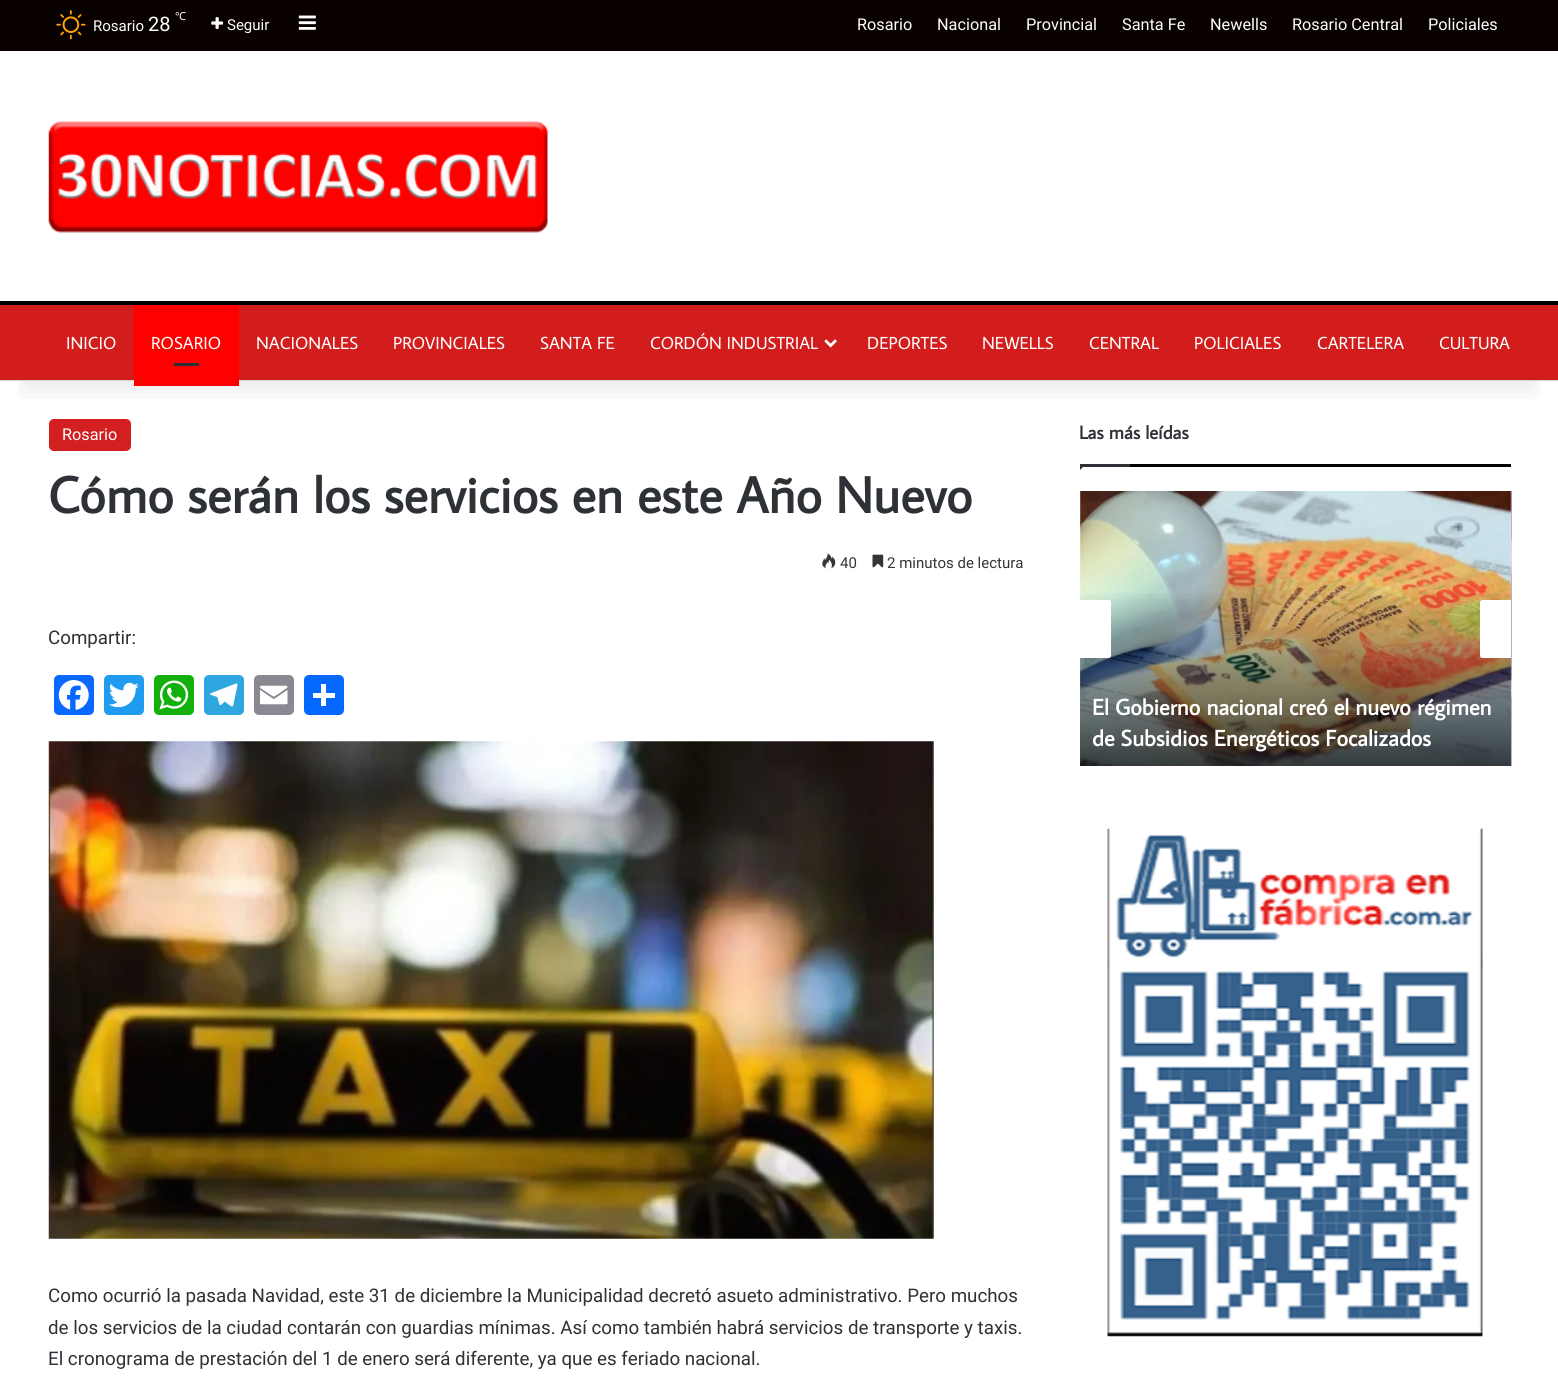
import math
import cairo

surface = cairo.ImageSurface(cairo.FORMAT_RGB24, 1558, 1381)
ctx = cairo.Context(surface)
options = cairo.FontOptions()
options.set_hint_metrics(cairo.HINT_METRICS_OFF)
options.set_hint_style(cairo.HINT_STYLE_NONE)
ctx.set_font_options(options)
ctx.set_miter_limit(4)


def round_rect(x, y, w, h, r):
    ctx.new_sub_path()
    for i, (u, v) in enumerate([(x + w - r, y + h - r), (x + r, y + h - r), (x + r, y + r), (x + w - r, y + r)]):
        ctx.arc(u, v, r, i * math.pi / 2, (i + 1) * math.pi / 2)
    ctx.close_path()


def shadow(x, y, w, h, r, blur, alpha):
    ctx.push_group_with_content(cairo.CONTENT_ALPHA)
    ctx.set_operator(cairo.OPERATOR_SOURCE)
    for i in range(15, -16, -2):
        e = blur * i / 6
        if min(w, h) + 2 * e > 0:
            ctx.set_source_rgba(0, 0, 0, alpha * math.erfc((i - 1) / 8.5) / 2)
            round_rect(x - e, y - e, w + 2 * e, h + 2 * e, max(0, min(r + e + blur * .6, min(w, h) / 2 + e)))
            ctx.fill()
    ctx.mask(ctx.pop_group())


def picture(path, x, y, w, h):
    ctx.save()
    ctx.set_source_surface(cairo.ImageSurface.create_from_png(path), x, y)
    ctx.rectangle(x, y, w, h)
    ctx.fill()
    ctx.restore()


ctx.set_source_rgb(1, 1, 1)
ctx.paint()
ctx.set_source_rgb(0.827, 0.122, 0.122)
round_rect(49, 419, 82, 32, 5)
ctx.fill()
ctx.save()
ctx.rectangle(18, 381, 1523, 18)
ctx.clip()
ctx.set_source_rgb(0, 0, 0)
shadow(25, 56, 1509, 332, 0, 12.5, 0.1)
ctx.restore()
ctx.set_source_rgb(0.039, 0, 0)
ctx.rectangle(0, 0, 1558, 51)
ctx.fill()
picture("img1.png", 56, 10, 30, 30)
ctx.select_font_face("Roboto")
ctx.set_font_size(15)
ctx.set_source_rgb(1, 1, 1)
ctx.move_to(93, 31)
ctx.show_text("Rosario")
ctx.set_font_size(20)
ctx.move_to(148, 31)
ctx.show_text("28")
ctx.select_font_face("Noto Sans")
ctx.set_font_size(11)
ctx.move_to(175, 20)
ctx.show_text("℃")
picture("img2.png", 211, 17, 13, 12)
ctx.select_font_face("Roboto")
ctx.set_font_size(15)
ctx.move_to(227, 30)
ctx.show_text("Seguir")
picture("img3.png", 298, 15, 18, 15)
ctx.set_font_size(16.25)
ctx.move_to(857, 30)
ctx.show_text("Rosario")
ctx.move_to(937, 30)
ctx.show_text("Nacional")
ctx.move_to(1026, 30)
ctx.show_text("Provincial")
ctx.move_to(1122, 30)
ctx.show_text("Santa Fe")
ctx.move_to(1210, 30)
ctx.show_text("Newells")
ctx.move_to(1292, 30)
ctx.show_text("Rosario Central")
ctx.move_to(1428, 30)
ctx.show_text("Policiales")
picture("img4.png", 48, 121, 500, 112)
ctx.set_source_rgb(0.827, 0.114, 0.114)
ctx.rectangle(0, 305, 1558, 75)
ctx.fill()
ctx.set_source_rgb(0, 0, 0)
ctx.rectangle(0, 301, 1558, 4)
ctx.fill()
ctx.set_source_rgb(0.835, 0.835, 0.835)
ctx.rectangle(0, 380, 1558, 1)
ctx.fill()
ctx.select_font_face("Average Sans")
ctx.set_font_size(17.5)
ctx.set_source_rgb(1, 1, 1)
ctx.move_to(66, 349)
ctx.show_text("INICIO")
ctx.set_source_rgb(1, 0, 0)
ctx.rectangle(134, 305, 105, 81)
ctx.fill()
ctx.set_source_rgb(1, 1, 1)
ctx.move_to(151, 349)
ctx.show_text("ROSARIO")
ctx.set_source_rgb(0.173, 0.184, 0.204)
ctx.rectangle(174, 363, 25, 3)
ctx.fill()
ctx.set_source_rgb(1, 1, 1)
ctx.move_to(256, 349)
ctx.show_text("NACIONALES")
ctx.move_to(393, 349)
ctx.show_text("PROVINCIALES")
ctx.move_to(540, 349)
ctx.show_text("SANTA FE")
ctx.move_to(650, 349)
ctx.show_text("CORDÓN INDUSTRIAL")
picture("img5.png", 824, 339, 13, 9)
ctx.move_to(867, 349)
ctx.show_text("DEPORTES")
ctx.move_to(982, 349)
ctx.show_text("NEWELLS")
ctx.move_to(1089, 349)
ctx.show_text("CENTRAL")
ctx.move_to(1194, 349)
ctx.show_text("POLICIALES")
ctx.move_to(1317, 349)
ctx.show_text("CARTELERA")
ctx.move_to(1439, 349)
ctx.show_text("CULTURA")
ctx.select_font_face("Roboto")
ctx.set_font_size(16.25)
ctx.move_to(62, 440)
ctx.show_text("Rosario")
ctx.select_font_face("Average Sans", cairo.FONT_SLANT_NORMAL, cairo.FONT_WEIGHT_BOLD)
ctx.set_font_size(51.25)
ctx.set_source_rgb(0.18, 0.192, 0.212)
ctx.move_to(48, 513)
ctx.show_text("Cómo serán los servicios en este Año Nuevo")
picture("img6.png", 822, 553, 14, 16)
ctx.select_font_face("Roboto")
ctx.set_font_size(15)
ctx.set_source_rgb(0.208, 0.208, 0.208)
ctx.move_to(840, 568)
ctx.show_text("40")
picture("img7.png", 872, 554, 12, 14)
ctx.move_to(887, 568)
ctx.show_text("2 minutos de lectura")
ctx.set_font_size(18.75)
ctx.set_source_rgb(0.18, 0.192, 0.212)
ctx.move_to(48, 644)
ctx.show_text("Compartir:")
ctx.set_source_rgb(0.039, 0.408, 1)
round_rect(54, 675, 40, 40, 5)
ctx.fill()
picture("img8.png", 58, 680, 31, 30)
ctx.set_source_rgb(0.122, 0.612, 0.941)
round_rect(104, 675, 40, 40, 5)
ctx.fill()
picture("img9.png", 109, 682, 30, 26)
ctx.set_source_rgb(0.078, 0.69, 0.047)
round_rect(154, 675, 40, 40, 5)
ctx.fill()
picture("img10.png", 159, 680, 30, 30)
ctx.set_source_rgb(0.18, 0.651, 0.878)
round_rect(204, 675, 40, 40, 5)
ctx.fill()
picture("img11.png", 210, 683, 28, 24)
ctx.set_source_rgb(0.537, 0.541, 0.569)
round_rect(254, 675, 40, 40, 5)
ctx.fill()
picture("img12.png", 260, 685, 28, 20)
ctx.set_source_rgb(0.016, 0.408, 1)
round_rect(304, 675, 40, 40, 5)
ctx.fill()
ctx.set_source_rgb(1, 1, 1)
ctx.rectangle(321, 684, 5, 22)
ctx.fill()
ctx.rectangle(313, 693, 22, 5)
ctx.fill()
picture("img13.png", 48, 741, 886, 498)
ctx.set_source_rgb(0.18, 0.192, 0.212)
ctx.move_to(48, 1302)
ctx.show_text("Como ocurrió la pasada Navidad, este 31 de diciembre la Municipalidad decretó asueto administrativo. Pero muchos")
ctx.move_to(48, 1334)
ctx.show_text("de los servicios de la ciudad contarán con guardias mínimas. Así como también habrá servicios de transporte y taxis.")
ctx.move_to(48, 1365)
ctx.show_text("El cronograma de prestación del 1 de enero será diferente, ya que es feriado nacional.")
ctx.set_source_rgb(0.012, 0.012, 0.012)
ctx.rectangle(1130, 464, 381, 3)
ctx.fill()
ctx.select_font_face("Average Sans", cairo.FONT_SLANT_NORMAL, cairo.FONT_WEIGHT_BOLD)
ctx.set_source_rgb(0.18, 0.192, 0.212)
ctx.move_to(1079, 439)
ctx.show_text("Las más leídas")
ctx.new_path()
ctx.move_to(1080, 464)
ctx.line_to(1086, 464)
ctx.line_to(1080, 470)
ctx.close_path()
ctx.fill()
ctx.rectangle(1080, 464, 50, 3)
ctx.fill()
picture("img14.png", 1080, 491, 432, 275)
gradient = cairo.LinearGradient(1296, 588, 1296, 766)
gradient.add_color_stop_rgba(0, 0.012, 0.012, 0.012, 0)
gradient.add_color_stop_rgba(1, 0.012, 0.012, 0.012, 0.75)
ctx.set_source(gradient)
ctx.rectangle(1080, 593, 431, 173)
ctx.fill()
ctx.set_source_rgb(1, 1, 1)
ctx.new_path()
ctx.move_to(1080, 600)
ctx.line_to(1108.5, 600)
ctx.curve_to(1110, 600, 1111, 601, 1111, 602.5)
ctx.line_to(1111, 655.5)
ctx.curve_to(1111, 657, 1110, 658, 1108.5, 658)
ctx.line_to(1080, 658)
ctx.close_path()
ctx.fill()
ctx.new_path()
ctx.move_to(1482.5, 600)
ctx.line_to(1511, 600)
ctx.line_to(1511, 658)
ctx.line_to(1482.5, 658)
ctx.curve_to(1481, 658, 1480, 657, 1480, 655.5)
ctx.line_to(1480, 602.5)
ctx.curve_to(1480, 601, 1481, 600, 1482.5, 600)
ctx.close_path()
ctx.fill()
ctx.set_font_size(22.5)
ctx.move_to(1092, 715)
ctx.show_text("El Gobierno nacional creó el nuevo régimen")
ctx.move_to(1092, 746)
ctx.show_text("de Subsidios Energéticos Focalizados")
picture("img15.png", 1511, 491, 1, 275)
picture("img16.png", 1107, 828, 376, 509)
surface.write_to_png("page.png")
